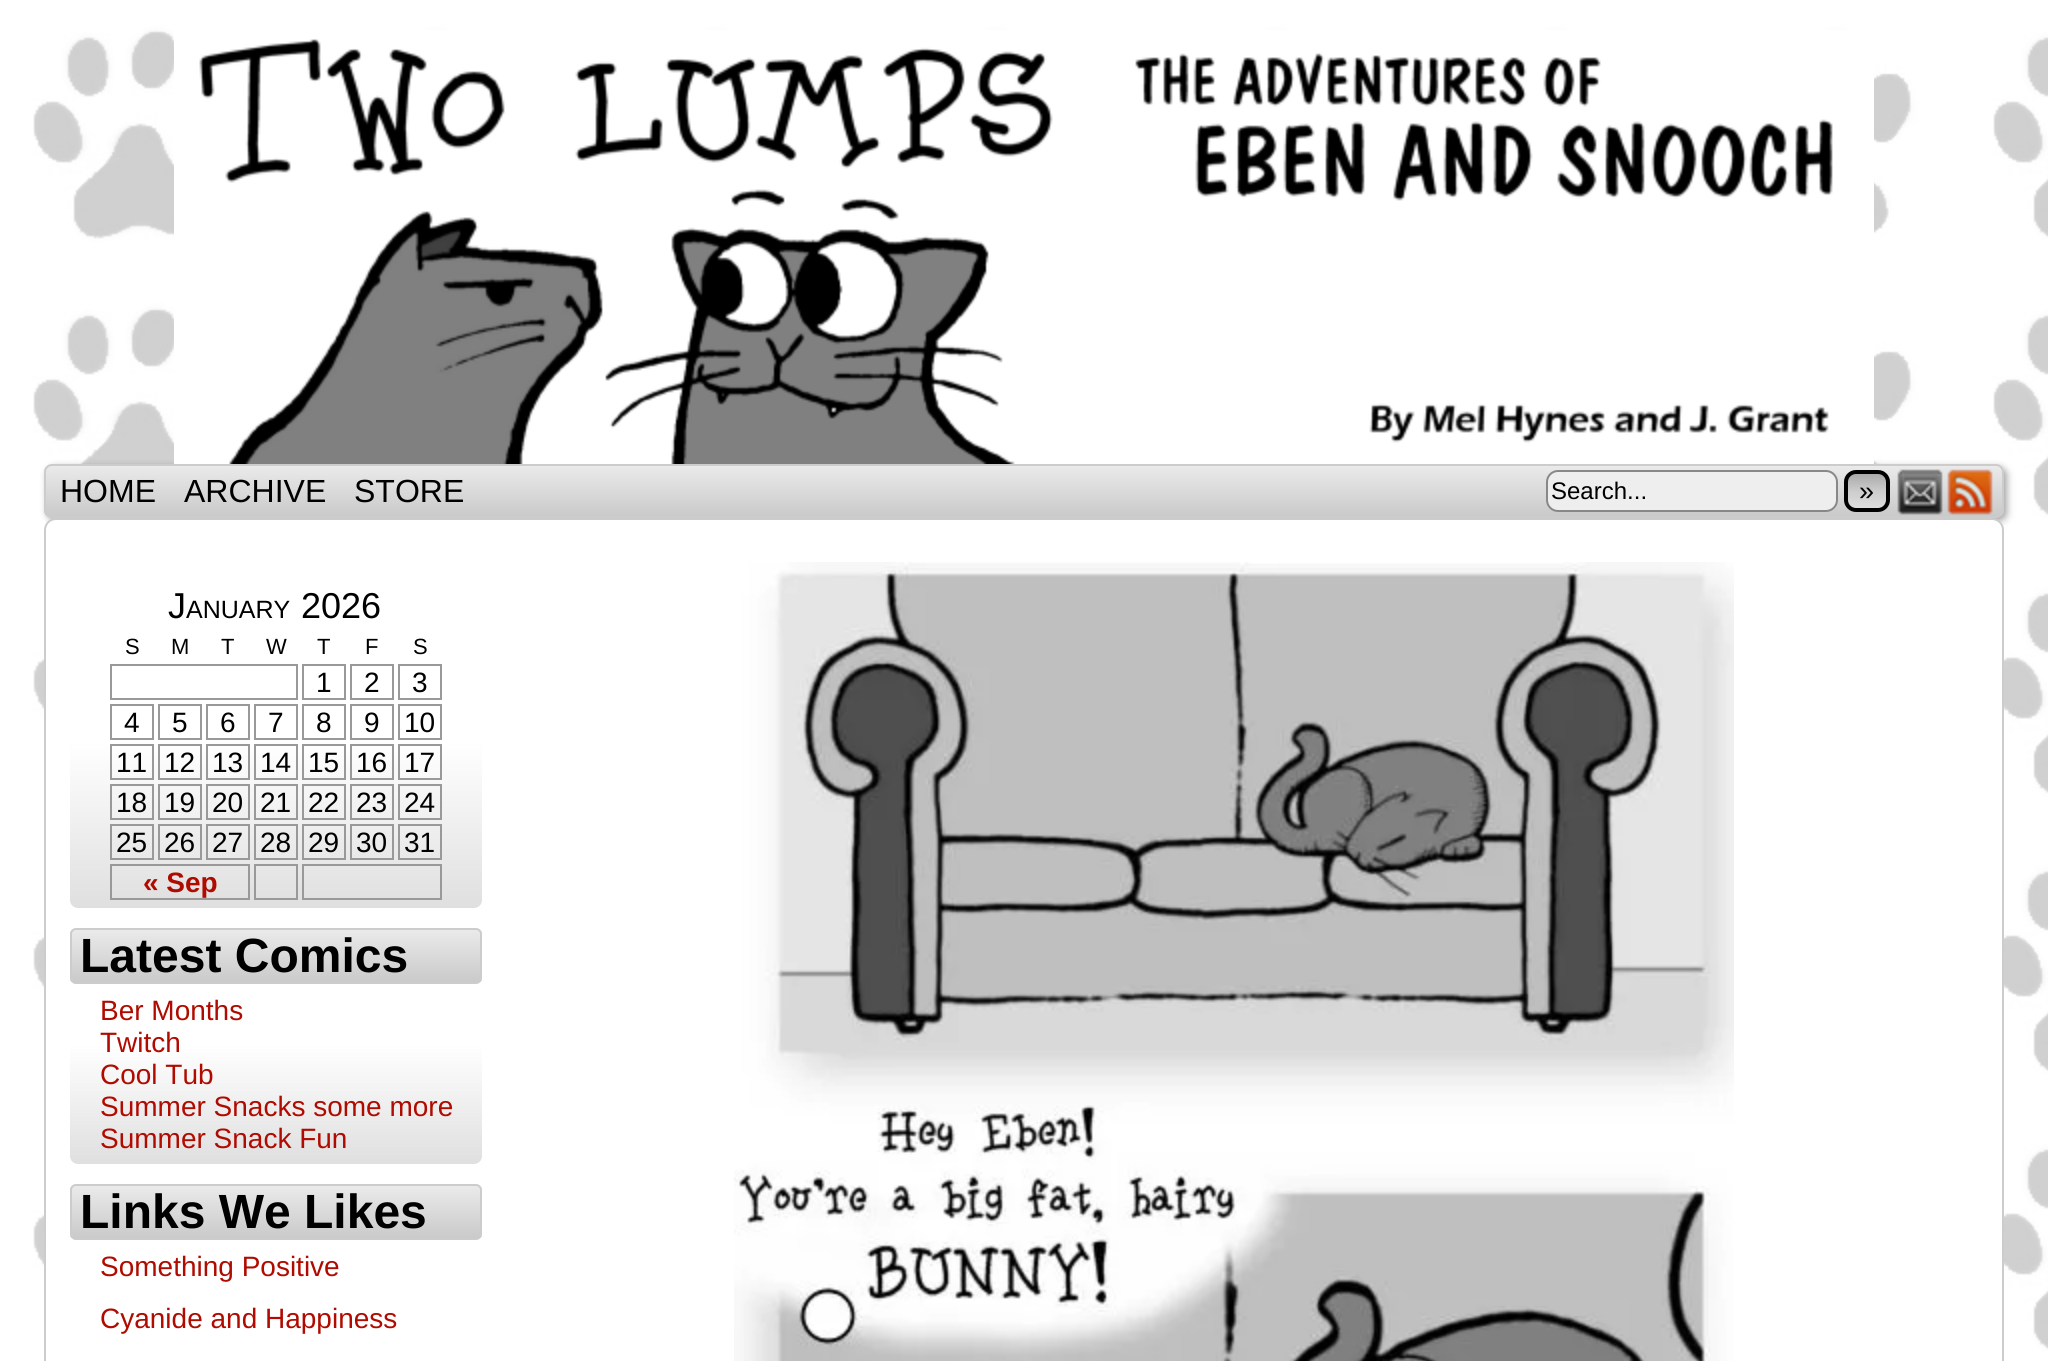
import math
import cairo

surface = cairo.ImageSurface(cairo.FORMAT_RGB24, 2048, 1361)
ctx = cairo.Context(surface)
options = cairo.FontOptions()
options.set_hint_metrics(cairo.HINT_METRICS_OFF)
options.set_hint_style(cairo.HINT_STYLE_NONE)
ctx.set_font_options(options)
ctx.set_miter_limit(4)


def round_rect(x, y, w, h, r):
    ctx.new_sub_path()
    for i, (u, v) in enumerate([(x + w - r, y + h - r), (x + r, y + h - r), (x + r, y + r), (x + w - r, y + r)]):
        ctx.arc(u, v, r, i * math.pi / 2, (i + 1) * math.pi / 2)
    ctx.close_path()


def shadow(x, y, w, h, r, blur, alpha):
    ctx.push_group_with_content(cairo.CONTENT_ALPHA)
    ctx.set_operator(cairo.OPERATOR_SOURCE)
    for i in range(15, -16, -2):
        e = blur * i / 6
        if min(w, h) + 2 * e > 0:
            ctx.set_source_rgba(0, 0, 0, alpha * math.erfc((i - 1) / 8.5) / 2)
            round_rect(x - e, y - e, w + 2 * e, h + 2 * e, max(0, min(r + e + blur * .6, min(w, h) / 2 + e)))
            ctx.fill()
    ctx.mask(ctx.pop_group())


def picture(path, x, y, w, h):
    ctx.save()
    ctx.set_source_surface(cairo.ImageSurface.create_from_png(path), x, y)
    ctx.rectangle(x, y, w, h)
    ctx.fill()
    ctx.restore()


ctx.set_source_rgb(1, 1, 1)
ctx.paint()
picture("img1.png", 0, 0, 2048, 1361)
ctx.set_source_rgb(0, 0, 0)
shadow(48, 468, 1960, 54, 8, 4, 0.2)
ctx.set_source_rgb(0.078, 0.078, 0.078)
shadow(46, 466, 1960, 54, 8, 3, 0.2)
picture("img2.png", 174, 30, 1700, 434)
ctx.save()
round_rect(44, 464, 1960, 54, 8)
ctx.clip()
gradient = cairo.LinearGradient(1024, 466, 1024, 516)
gradient.add_color_stop_rgba(0, 0.918, 0.918, 0.918, 1)
gradient.add_color_stop_rgba(1, 0.792, 0.792, 0.792, 1)
ctx.set_source(gradient)
ctx.rectangle(44, 466, 1960, 50)
ctx.fill()
ctx.restore()
round_rect(45, 465, 1958, 52, 7)
ctx.set_source_rgb(0.8, 0.8, 0.8)
ctx.stroke()
ctx.select_font_face("Liberation Sans")
ctx.set_font_size(32)
ctx.set_source_rgb(0, 0, 0)
ctx.move_to(60, 502)
ctx.show_text("HOME")
ctx.move_to(184, 502)
ctx.show_text("ARCHIVE")
ctx.move_to(354, 502)
ctx.show_text("STORE")
ctx.set_source_rgb(0.933, 0.933, 0.933)
round_rect(1547, 471, 290, 40, 11)
ctx.fill_preserve()
ctx.set_source_rgb(0.533, 0.533, 0.533)
ctx.stroke()
ctx.set_font_size(24)
ctx.set_source_rgb(0, 0, 0)
ctx.move_to(1551, 499)
ctx.show_text("Search...")
ctx.save()
round_rect(1844, 470, 46, 42, 12)
ctx.clip()
gradient = cairo.LinearGradient(1867, 474, 1867, 508)
gradient.add_color_stop_rgba(0, 0.667, 0.667, 0.667, 1)
gradient.add_color_stop_rgba(0.5, 0.8, 0.8, 0.8, 1)
gradient.add_color_stop_rgba(1, 0.867, 0.867, 0.867, 1)
ctx.set_source(gradient)
ctx.rectangle(1844, 474, 46, 34)
ctx.fill()
ctx.restore()
round_rect(1846, 472, 42, 38, 10)
ctx.set_line_width(4)
ctx.stroke()
ctx.set_font_size(27)
ctx.move_to(1859, 500)
ctx.show_text("»")
picture("img3.png", 1897, 469, 46, 46)
picture("img4.png", 1947, 469, 46, 46)
ctx.set_source_rgb(1, 1, 1)
round_rect(45, 519, 1958, 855, 11)
ctx.fill_preserve()
ctx.set_source_rgb(0.8, 0.8, 0.8)
ctx.set_line_width(2)
ctx.stroke()
gradient = cairo.LinearGradient(276, 582, 276, 908)
gradient.add_color_stop_rgba(0, 1, 1, 1, 1)
gradient.add_color_stop_rgba(0.49, 1, 1, 1, 1)
gradient.add_color_stop_rgba(1, 0.875, 0.875, 0.875, 1)
ctx.set_source(gradient)
round_rect(70, 582, 412, 326, 8)
ctx.fill()
ctx.set_font_size(36)
ctx.set_source_rgb(0, 0, 0)
ctx.move_to(168, 618)
ctx.show_text("J")
ctx.set_font_size(25)
ctx.move_to(186, 618)
ctx.show_text("ANUARY")
ctx.set_font_size(36)
ctx.move_to(301, 618)
ctx.show_text("2026")
ctx.set_font_size(22)
ctx.move_to(125, 654)
ctx.show_text("S")
ctx.move_to(171, 654)
ctx.show_text("M")
ctx.move_to(221, 654)
ctx.show_text("T")
ctx.move_to(266, 654)
ctx.show_text("W")
ctx.move_to(317, 654)
ctx.show_text("T")
ctx.move_to(365, 654)
ctx.show_text("F")
ctx.move_to(413, 654)
ctx.show_text("S")
ctx.rectangle(111, 665, 186, 34)
ctx.set_source_rgb(0.6, 0.6, 0.6)
ctx.stroke()
ctx.rectangle(303, 665, 42, 34)
ctx.stroke()
ctx.set_font_size(28)
ctx.set_source_rgb(0, 0, 0)
ctx.move_to(316, 692)
ctx.show_text("1")
ctx.rectangle(351, 665, 42, 34)
ctx.set_source_rgb(0.6, 0.6, 0.6)
ctx.stroke()
ctx.set_source_rgb(0, 0, 0)
ctx.move_to(364, 692)
ctx.show_text("2")
ctx.rectangle(399, 665, 42, 34)
ctx.set_source_rgb(0.6, 0.6, 0.6)
ctx.stroke()
ctx.set_source_rgb(0, 0, 0)
ctx.move_to(412, 692)
ctx.show_text("3")
ctx.rectangle(111, 705, 42, 34)
ctx.set_source_rgb(0.6, 0.6, 0.6)
ctx.stroke()
ctx.set_source_rgb(0, 0, 0)
ctx.move_to(124, 732)
ctx.show_text("4")
ctx.rectangle(159, 705, 42, 34)
ctx.set_source_rgb(0.6, 0.6, 0.6)
ctx.stroke()
ctx.set_source_rgb(0, 0, 0)
ctx.move_to(172, 732)
ctx.show_text("5")
ctx.rectangle(207, 705, 42, 34)
ctx.set_source_rgb(0.6, 0.6, 0.6)
ctx.stroke()
ctx.set_source_rgb(0, 0, 0)
ctx.move_to(220, 732)
ctx.show_text("6")
ctx.rectangle(255, 705, 42, 34)
ctx.set_source_rgb(0.6, 0.6, 0.6)
ctx.stroke()
ctx.set_source_rgb(0, 0, 0)
ctx.move_to(268, 732)
ctx.show_text("7")
ctx.rectangle(303, 705, 42, 34)
ctx.set_source_rgb(0.6, 0.6, 0.6)
ctx.stroke()
ctx.set_source_rgb(0, 0, 0)
ctx.move_to(316, 732)
ctx.show_text("8")
ctx.rectangle(351, 705, 42, 34)
ctx.set_source_rgb(0.6, 0.6, 0.6)
ctx.stroke()
ctx.set_source_rgb(0, 0, 0)
ctx.move_to(364, 732)
ctx.show_text("9")
ctx.rectangle(399, 705, 42, 34)
ctx.set_source_rgb(0.6, 0.6, 0.6)
ctx.stroke()
ctx.set_source_rgb(0, 0, 0)
ctx.move_to(404, 732)
ctx.show_text("10")
ctx.rectangle(111, 745, 42, 34)
ctx.set_source_rgb(0.6, 0.6, 0.6)
ctx.stroke()
ctx.set_source_rgb(0, 0, 0)
ctx.move_to(116, 772)
ctx.show_text("11")
ctx.rectangle(159, 745, 42, 34)
ctx.set_source_rgb(0.6, 0.6, 0.6)
ctx.stroke()
ctx.set_source_rgb(0, 0, 0)
ctx.move_to(164, 772)
ctx.show_text("12")
ctx.rectangle(207, 745, 42, 34)
ctx.set_source_rgb(0.6, 0.6, 0.6)
ctx.stroke()
ctx.set_source_rgb(0, 0, 0)
ctx.move_to(212, 772)
ctx.show_text("13")
ctx.rectangle(255, 745, 42, 34)
ctx.set_source_rgb(0.6, 0.6, 0.6)
ctx.stroke()
ctx.set_source_rgb(0, 0, 0)
ctx.move_to(260, 772)
ctx.show_text("14")
ctx.rectangle(303, 745, 42, 34)
ctx.set_source_rgb(0.6, 0.6, 0.6)
ctx.stroke()
ctx.set_source_rgb(0, 0, 0)
ctx.move_to(308, 772)
ctx.show_text("15")
ctx.rectangle(351, 745, 42, 34)
ctx.set_source_rgb(0.6, 0.6, 0.6)
ctx.stroke()
ctx.set_source_rgb(0, 0, 0)
ctx.move_to(356, 772)
ctx.show_text("16")
ctx.rectangle(399, 745, 42, 34)
ctx.set_source_rgb(0.6, 0.6, 0.6)
ctx.stroke()
ctx.set_source_rgb(0, 0, 0)
ctx.move_to(404, 772)
ctx.show_text("17")
ctx.rectangle(111, 785, 42, 34)
ctx.set_source_rgb(0.6, 0.6, 0.6)
ctx.stroke()
ctx.set_source_rgb(0, 0, 0)
ctx.move_to(116, 812)
ctx.show_text("18")
ctx.rectangle(159, 785, 42, 34)
ctx.set_source_rgb(0.6, 0.6, 0.6)
ctx.stroke()
ctx.set_source_rgb(0, 0, 0)
ctx.move_to(164, 812)
ctx.show_text("19")
ctx.rectangle(207, 785, 42, 34)
ctx.set_source_rgb(0.6, 0.6, 0.6)
ctx.stroke()
ctx.set_source_rgb(0, 0, 0)
ctx.move_to(212, 812)
ctx.show_text("20")
ctx.rectangle(255, 785, 42, 34)
ctx.set_source_rgb(0.6, 0.6, 0.6)
ctx.stroke()
ctx.set_source_rgb(0, 0, 0)
ctx.move_to(260, 812)
ctx.show_text("21")
ctx.rectangle(303, 785, 42, 34)
ctx.set_source_rgb(0.6, 0.6, 0.6)
ctx.stroke()
ctx.set_source_rgb(0, 0, 0)
ctx.move_to(308, 812)
ctx.show_text("22")
ctx.rectangle(351, 785, 42, 34)
ctx.set_source_rgb(0.6, 0.6, 0.6)
ctx.stroke()
ctx.set_source_rgb(0, 0, 0)
ctx.move_to(356, 812)
ctx.show_text("23")
ctx.rectangle(399, 785, 42, 34)
ctx.set_source_rgb(0.6, 0.6, 0.6)
ctx.stroke()
ctx.set_source_rgb(0, 0, 0)
ctx.move_to(404, 812)
ctx.show_text("24")
ctx.rectangle(111, 825, 42, 34)
ctx.set_source_rgb(0.6, 0.6, 0.6)
ctx.stroke()
ctx.set_source_rgb(0, 0, 0)
ctx.move_to(116, 852)
ctx.show_text("25")
ctx.rectangle(159, 825, 42, 34)
ctx.set_source_rgb(0.6, 0.6, 0.6)
ctx.stroke()
ctx.set_source_rgb(0, 0, 0)
ctx.move_to(164, 852)
ctx.show_text("26")
ctx.rectangle(207, 825, 42, 34)
ctx.set_source_rgb(0.6, 0.6, 0.6)
ctx.stroke()
ctx.set_source_rgb(0, 0, 0)
ctx.move_to(212, 852)
ctx.show_text("27")
ctx.rectangle(255, 825, 42, 34)
ctx.set_source_rgb(0.6, 0.6, 0.6)
ctx.stroke()
ctx.set_source_rgb(0, 0, 0)
ctx.move_to(260, 852)
ctx.show_text("28")
ctx.rectangle(303, 825, 42, 34)
ctx.set_source_rgb(0.6, 0.6, 0.6)
ctx.stroke()
ctx.set_source_rgb(0, 0, 0)
ctx.move_to(308, 852)
ctx.show_text("29")
ctx.rectangle(351, 825, 42, 34)
ctx.set_source_rgb(0.6, 0.6, 0.6)
ctx.stroke()
ctx.set_source_rgb(0, 0, 0)
ctx.move_to(356, 852)
ctx.show_text("30")
ctx.rectangle(399, 825, 42, 34)
ctx.set_source_rgb(0.6, 0.6, 0.6)
ctx.stroke()
ctx.set_source_rgb(0, 0, 0)
ctx.move_to(404, 852)
ctx.show_text("31")
ctx.rectangle(111, 865, 138, 34)
ctx.set_source_rgb(0.6, 0.6, 0.6)
ctx.stroke()
ctx.select_font_face("Liberation Sans", cairo.FONT_SLANT_NORMAL, cairo.FONT_WEIGHT_BOLD)
ctx.set_source_rgb(0.69, 0.043, 0)
ctx.move_to(143, 892)
ctx.show_text("« Sep")
ctx.rectangle(255, 865, 42, 34)
ctx.set_source_rgb(0.6, 0.6, 0.6)
ctx.stroke()
ctx.rectangle(303, 865, 138, 34)
ctx.stroke()
gradient = cairo.LinearGradient(276, 928, 276, 1164)
gradient.add_color_stop_rgba(0, 1, 1, 1, 1)
gradient.add_color_stop_rgba(0.49, 1, 1, 1, 1)
gradient.add_color_stop_rgba(1, 0.875, 0.875, 0.875, 1)
ctx.set_source(gradient)
round_rect(70, 928, 412, 236, 8)
ctx.fill()
ctx.save()
round_rect(70, 928, 412, 56, 6)
ctx.clip()
gradient = cairo.LinearGradient(276, 930, 276, 982)
gradient.add_color_stop_rgba(0, 0.918, 0.918, 0.918, 1)
gradient.add_color_stop_rgba(1, 0.792, 0.792, 0.792, 1)
ctx.set_source(gradient)
ctx.rectangle(70, 930, 412, 52)
ctx.fill()
ctx.restore()
round_rect(71, 929, 410, 54, 5)
ctx.set_source_rgb(0.8, 0.8, 0.8)
ctx.stroke()
ctx.set_font_size(48)
ctx.set_source_rgb(0, 0, 0)
ctx.move_to(80, 972)
ctx.show_text("Latest Comics")
ctx.select_font_face("Liberation Sans")
ctx.set_font_size(28)
ctx.set_source_rgb(0.69, 0.043, 0)
ctx.move_to(100, 1020)
ctx.show_text("Ber Months")
ctx.move_to(100, 1052)
ctx.show_text("Twitch")
ctx.move_to(100, 1084)
ctx.show_text("Cool Tub")
ctx.move_to(100, 1116)
ctx.show_text("Summer Snacks some more")
ctx.move_to(100, 1148)
ctx.show_text("Summer Snack Fun")
ctx.save()
round_rect(70, 1184, 412, 56, 6)
ctx.clip()
gradient = cairo.LinearGradient(276, 1186, 276, 1238)
gradient.add_color_stop_rgba(0, 0.918, 0.918, 0.918, 1)
gradient.add_color_stop_rgba(1, 0.792, 0.792, 0.792, 1)
ctx.set_source(gradient)
ctx.rectangle(70, 1186, 412, 52)
ctx.fill()
ctx.restore()
round_rect(71, 1185, 410, 54, 5)
ctx.set_source_rgb(0.8, 0.8, 0.8)
ctx.stroke()
ctx.select_font_face("Liberation Sans", cairo.FONT_SLANT_NORMAL, cairo.FONT_WEIGHT_BOLD)
ctx.set_font_size(48)
ctx.set_source_rgb(0, 0, 0)
ctx.move_to(80, 1228)
ctx.show_text("Links We Likes")
ctx.select_font_face("Liberation Sans")
ctx.set_font_size(28)
ctx.set_source_rgb(0.69, 0.043, 0)
ctx.move_to(100, 1276)
ctx.show_text("Something Positive")
ctx.move_to(100, 1328)
ctx.show_text("Cyanide and Happiness")
picture("img5.png", 734, 562, 1000, 799)
surface.write_to_png("page.png")
